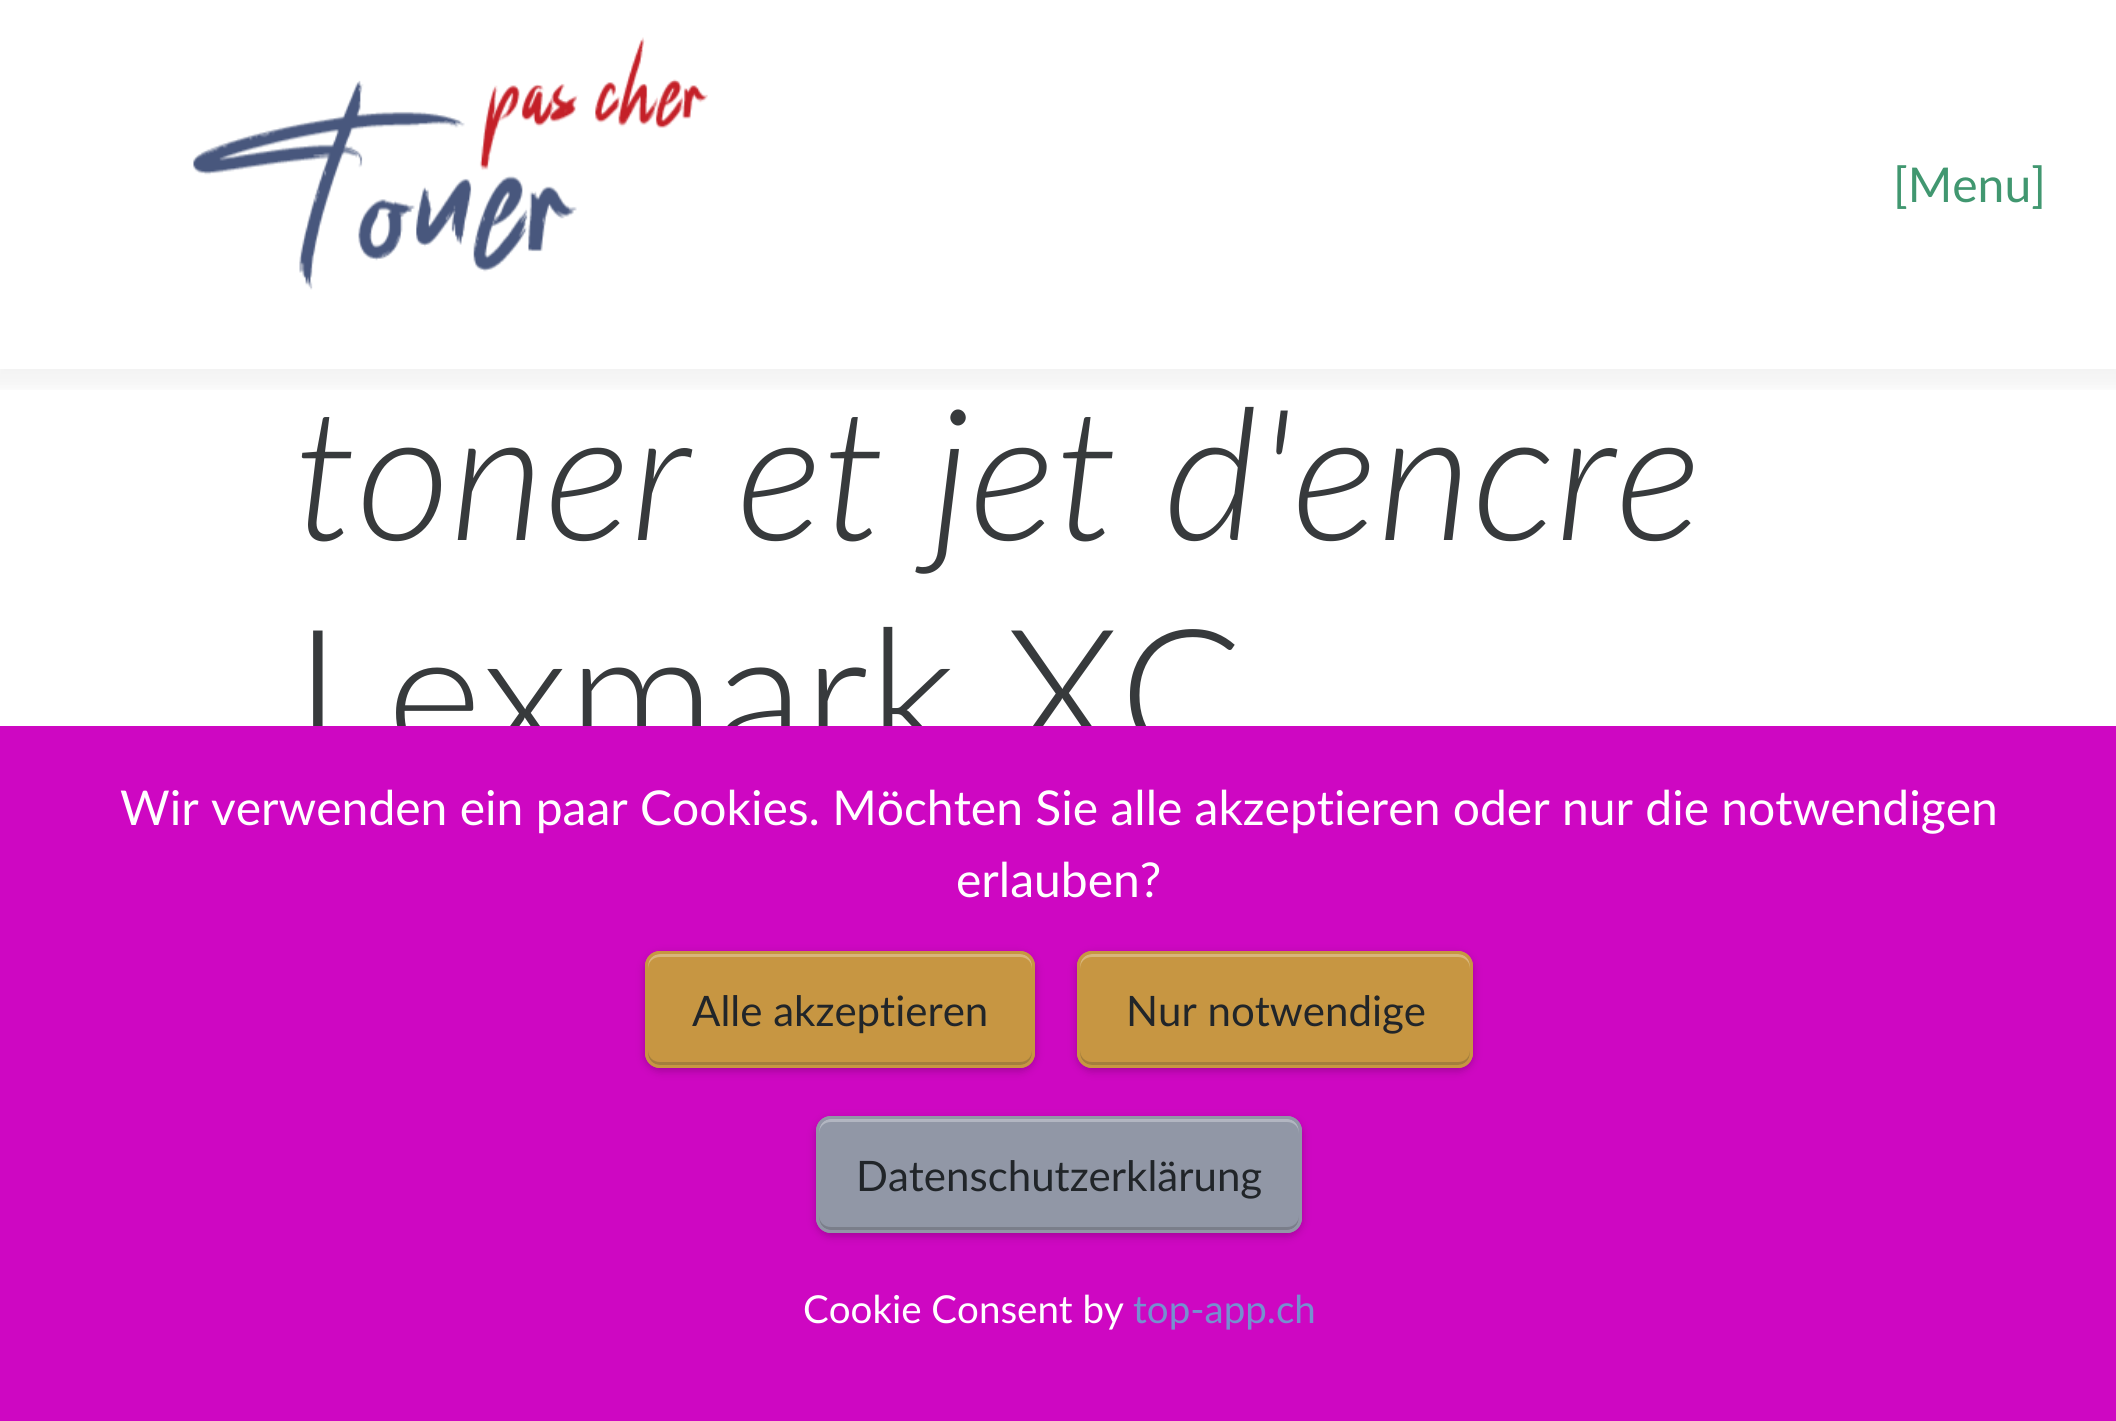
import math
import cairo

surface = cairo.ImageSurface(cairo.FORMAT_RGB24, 2116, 1421)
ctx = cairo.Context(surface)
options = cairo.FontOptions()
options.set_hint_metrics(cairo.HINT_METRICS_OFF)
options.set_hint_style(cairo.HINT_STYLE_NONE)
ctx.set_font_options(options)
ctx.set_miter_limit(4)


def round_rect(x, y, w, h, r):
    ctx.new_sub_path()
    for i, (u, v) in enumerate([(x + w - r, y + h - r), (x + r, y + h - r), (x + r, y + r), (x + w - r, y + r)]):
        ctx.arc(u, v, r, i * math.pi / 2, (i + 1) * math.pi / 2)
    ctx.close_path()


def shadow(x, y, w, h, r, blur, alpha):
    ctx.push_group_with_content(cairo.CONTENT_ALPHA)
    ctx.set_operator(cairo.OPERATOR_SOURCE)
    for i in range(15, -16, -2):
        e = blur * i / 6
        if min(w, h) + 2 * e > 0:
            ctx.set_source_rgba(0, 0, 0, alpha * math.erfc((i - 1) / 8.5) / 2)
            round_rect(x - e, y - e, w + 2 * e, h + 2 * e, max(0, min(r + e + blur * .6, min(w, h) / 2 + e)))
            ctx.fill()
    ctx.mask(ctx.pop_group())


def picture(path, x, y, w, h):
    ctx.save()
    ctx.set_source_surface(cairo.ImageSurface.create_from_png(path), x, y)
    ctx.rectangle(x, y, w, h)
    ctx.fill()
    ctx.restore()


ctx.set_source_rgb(1, 1, 1)
ctx.paint()
ctx.save()
ctx.rectangle(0, 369, 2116, 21)
ctx.clip()
ctx.set_source_rgb(0, 0, 0)
shadow(-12, -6, 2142, 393, 0, 10.5, 0.05)
ctx.restore()
picture("img1.png", 193, 37, 515, 253)
ctx.select_font_face("Lato")
ctx.set_font_size(48)
ctx.set_source_rgb(0.255, 0.592, 0.439)
ctx.move_to(1893, 202)
ctx.show_text("[Menu]")
ctx.select_font_face("Lato Light", cairo.FONT_SLANT_ITALIC)
ctx.set_font_size(183)
ctx.set_source_rgb(0.216, 0.227, 0.235)
ctx.move_to(294, 540)
ctx.show_text("toner et jet d'encre")
ctx.select_font_face("Lato Light")
ctx.move_to(294, 760)
ctx.show_text("Lexmark XC")
ctx.set_source_rgb(0.808, 0.031, 0.761)
ctx.rectangle(0, 726, 2116, 695)
ctx.fill()
ctx.select_font_face("Lato")
ctx.set_font_size(48)
ctx.set_source_rgb(1, 1, 1)
ctx.move_to(120, 825)
ctx.show_text("Wir verwenden ein paar Cookies. Möchten Sie alle akzeptieren oder nur die notwendigen")
ctx.move_to(956, 897)
ctx.show_text("erlauben?")
ctx.set_source_rgb(0, 0, 0)
shadow(645, 954, 390, 117, 15, 4.5, 0.22)
ctx.set_source_rgb(0.78, 0.588, 0.259)
round_rect(645, 951, 390, 117, 15)
ctx.fill()
ctx.set_source_rgb(0.643, 0.494, 0.235)
ctx.new_path()
ctx.move_to(648, 1050)
ctx.line_to(648, 1053)
ctx.curve_to(648, 1060, 653, 1065, 660, 1065)
ctx.line_to(1020, 1065)
ctx.curve_to(1027, 1065, 1032, 1060, 1032, 1053)
ctx.line_to(1032, 1050)
ctx.curve_to(1032, 1057, 1027, 1062, 1020, 1062)
ctx.line_to(660, 1062)
ctx.curve_to(653, 1062, 648, 1057, 648, 1050)
ctx.close_path()
ctx.fill()
ctx.set_source_rgb(0.847, 0.714, 0.482)
ctx.new_path()
ctx.move_to(660, 957)
ctx.line_to(1020, 957)
ctx.curve_to(1027, 957, 1032, 962, 1032, 969)
ctx.line_to(1032, 966)
ctx.curve_to(1032, 959, 1027, 954, 1020, 954)
ctx.line_to(660, 954)
ctx.curve_to(653, 954, 648, 959, 648, 966)
ctx.line_to(648, 969)
ctx.curve_to(648, 962, 653, 957, 660, 957)
ctx.close_path()
ctx.fill()
round_rect(646.5, 952.5, 387, 114, 13.5)
ctx.set_source_rgb(0.78, 0.588, 0.259)
ctx.set_line_width(3)
ctx.stroke()
ctx.set_font_size(42)
ctx.set_source_rgb(0.129, 0.145, 0.161)
ctx.move_to(692, 1026)
ctx.show_text("Alle akzeptieren")
ctx.set_source_rgb(0, 0, 0)
shadow(1077, 954, 396, 117, 15, 4.5, 0.22)
ctx.set_source_rgb(0.78, 0.588, 0.259)
round_rect(1077, 951, 396, 117, 15)
ctx.fill()
ctx.set_source_rgb(0.643, 0.494, 0.235)
ctx.new_path()
ctx.move_to(1080, 1050)
ctx.line_to(1080, 1053)
ctx.curve_to(1080, 1060, 1085, 1065, 1092, 1065)
ctx.line_to(1458, 1065)
ctx.curve_to(1465, 1065, 1470, 1060, 1470, 1053)
ctx.line_to(1470, 1050)
ctx.curve_to(1470, 1057, 1465, 1062, 1458, 1062)
ctx.line_to(1092, 1062)
ctx.curve_to(1085, 1062, 1080, 1057, 1080, 1050)
ctx.close_path()
ctx.fill()
ctx.set_source_rgb(0.847, 0.714, 0.482)
ctx.new_path()
ctx.move_to(1092, 957)
ctx.line_to(1458, 957)
ctx.curve_to(1465, 957, 1470, 962, 1470, 969)
ctx.line_to(1470, 966)
ctx.curve_to(1470, 959, 1465, 954, 1458, 954)
ctx.line_to(1092, 954)
ctx.curve_to(1085, 954, 1080, 959, 1080, 966)
ctx.line_to(1080, 969)
ctx.curve_to(1080, 962, 1085, 957, 1092, 957)
ctx.close_path()
ctx.fill()
round_rect(1078.5, 952.5, 393, 114, 13.5)
ctx.set_source_rgb(0.78, 0.588, 0.259)
ctx.stroke()
ctx.set_source_rgb(0.129, 0.145, 0.161)
ctx.move_to(1126, 1026)
ctx.show_text("Nur notwendige")
ctx.set_source_rgb(0, 0, 0)
shadow(816, 1119, 486, 117, 15, 4.5, 0.22)
ctx.set_source_rgb(0.569, 0.592, 0.651)
round_rect(816, 1116, 486, 117, 15)
ctx.fill()
ctx.set_source_rgb(0.478, 0.494, 0.541)
ctx.new_path()
ctx.move_to(819, 1215)
ctx.curve_to(819, 1222, 821, 1228, 829, 1230)
ctx.line_to(1289, 1230)
ctx.curve_to(1297, 1228, 1299, 1222, 1299, 1215)
ctx.curve_to(1299, 1222, 1294, 1227, 1287, 1227)
ctx.line_to(831, 1227)
ctx.curve_to(824, 1227, 819, 1222, 819, 1215)
ctx.close_path()
ctx.fill()
ctx.set_source_rgb(0.698, 0.714, 0.757)
ctx.new_path()
ctx.move_to(831, 1122)
ctx.line_to(1287, 1122)
ctx.curve_to(1294, 1122, 1299, 1127, 1299, 1134)
ctx.curve_to(1299, 1127, 1297, 1121, 1289, 1119)
ctx.line_to(829, 1119)
ctx.curve_to(821, 1121, 819, 1127, 819, 1134)
ctx.curve_to(819, 1127, 824, 1122, 831, 1122)
ctx.close_path()
ctx.fill()
round_rect(817.5, 1117.5, 483, 114, 13.5)
ctx.set_source_rgb(0.569, 0.592, 0.651)
ctx.stroke()
ctx.set_source_rgb(0.129, 0.145, 0.161)
ctx.move_to(856, 1191)
ctx.show_text("Datenschutzerklärung")
ctx.set_font_size(38.5)
ctx.set_source_rgb(1, 1, 1)
ctx.move_to(803, 1323)
ctx.show_text("Cookie Consent by")
ctx.set_source_rgb(0.463, 0.565, 0.812)
ctx.move_to(1133, 1323)
ctx.show_text("top-app.ch")
surface.write_to_png("page.png")
